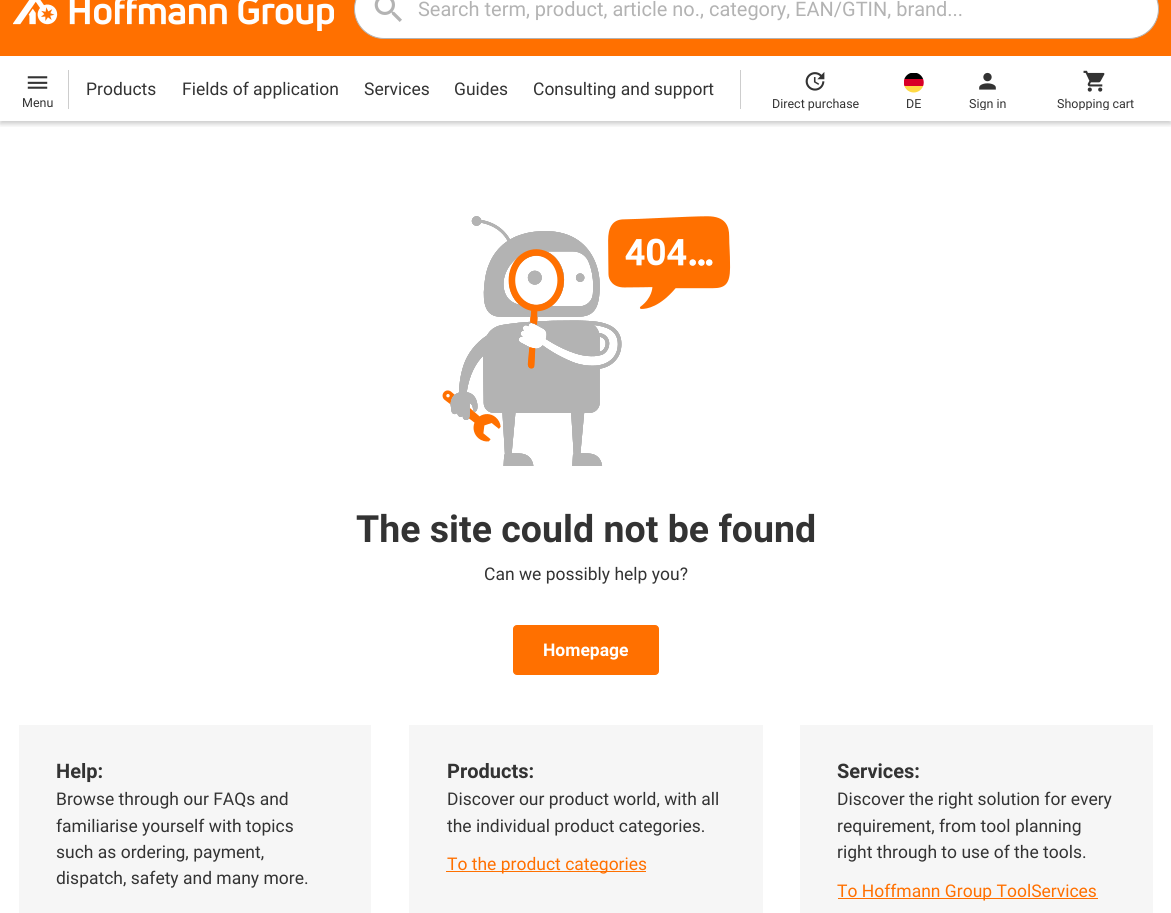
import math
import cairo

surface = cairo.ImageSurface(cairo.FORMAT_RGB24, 1171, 913)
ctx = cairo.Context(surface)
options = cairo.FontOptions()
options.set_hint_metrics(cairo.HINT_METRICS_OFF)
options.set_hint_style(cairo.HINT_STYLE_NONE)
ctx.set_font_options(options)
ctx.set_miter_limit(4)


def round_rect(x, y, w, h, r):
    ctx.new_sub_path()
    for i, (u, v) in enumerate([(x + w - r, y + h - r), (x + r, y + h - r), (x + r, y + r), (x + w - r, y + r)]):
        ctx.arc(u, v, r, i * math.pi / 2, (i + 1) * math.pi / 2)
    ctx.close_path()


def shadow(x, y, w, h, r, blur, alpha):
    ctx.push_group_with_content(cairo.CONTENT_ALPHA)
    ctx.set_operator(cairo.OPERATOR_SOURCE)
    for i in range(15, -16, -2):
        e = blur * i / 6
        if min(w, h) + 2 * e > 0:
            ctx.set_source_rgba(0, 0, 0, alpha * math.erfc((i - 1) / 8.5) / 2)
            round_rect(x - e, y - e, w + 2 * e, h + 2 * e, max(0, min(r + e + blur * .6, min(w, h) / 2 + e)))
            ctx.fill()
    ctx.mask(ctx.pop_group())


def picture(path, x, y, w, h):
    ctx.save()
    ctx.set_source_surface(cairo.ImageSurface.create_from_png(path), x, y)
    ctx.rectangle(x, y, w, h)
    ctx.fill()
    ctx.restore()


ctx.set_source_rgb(1, 1, 1)
ctx.paint()
ctx.set_source_rgb(1, 0.439, 0)
ctx.rectangle(0, 0, 1171, 56)
ctx.fill()
picture("img1.png", 13, 0, 321, 31)
ctx.set_source_rgb(1, 1, 1)
round_rect(354.5, -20.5, 804, 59, 29.5)
ctx.fill_preserve()
ctx.set_source_rgb(0.702, 0.702, 0.702)
ctx.set_line_width(1)
ctx.stroke()
picture("img2.png", 374, 0, 28, 22)
ctx.select_font_face("Roboto")
ctx.set_font_size(20)
ctx.move_to(418, 16)
ctx.show_text("Search term, product, article no., category, EAN/GTIN, brand...")
ctx.save()
ctx.rectangle(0, 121, 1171, 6)
ctx.clip()
ctx.set_source_rgb(0, 0, 0)
shadow(0, 59, 1171, 65, 0, 2.5, 0.2)
ctx.restore()
ctx.set_font_size(17.5)
ctx.set_source_rgb(0.2, 0.2, 0.2)
ctx.move_to(86, 95)
ctx.show_text("Products")
ctx.move_to(182, 95)
ctx.show_text("Fields of application")
ctx.move_to(364, 95)
ctx.show_text("Services")
ctx.move_to(454, 95)
ctx.show_text("Guides")
ctx.move_to(533, 95)
ctx.show_text("Consulting and support")
picture("img3.png", 27, 76, 21, 13)
ctx.set_font_size(12.5)
ctx.move_to(22, 107)
ctx.show_text("Menu")
ctx.set_source_rgb(0.804, 0.804, 0.804)
ctx.rectangle(68, 70, 1, 39)
ctx.fill()
ctx.rectangle(740, 70, 1, 39)
ctx.fill()
picture("img4.png", 805, 72, 20, 19)
ctx.set_source_rgb(0.2, 0.2, 0.2)
ctx.move_to(772, 108)
ctx.show_text("Direct purchase")
picture("img5.png", 904, 73, 20, 20)
ctx.move_to(906, 108)
ctx.show_text("DE")
picture("img6.png", 979, 72, 17, 18)
ctx.save()
ctx.rectangle(956, 96, 63, 14)
ctx.clip()
ctx.move_to(969, 108)
ctx.show_text("Sign in")
ctx.restore()
picture("img7.png", 1083, 70, 22, 22)
ctx.save()
ctx.rectangle(1044, 96, 102, 14)
ctx.clip()
ctx.move_to(1057, 108)
ctx.show_text("Shopping cart")
ctx.restore()
picture("img8.png", 442, 216, 289, 250)
ctx.select_font_face("Roboto", cairo.FONT_SLANT_NORMAL, cairo.FONT_WEIGHT_BOLD)
ctx.set_font_size(37.5)
ctx.move_to(356, 542)
ctx.show_text("The site could not be found")
ctx.select_font_face("Roboto")
ctx.set_font_size(17.5)
ctx.move_to(484, 580)
ctx.show_text("Can we possibly help you?")
ctx.set_source_rgb(1, 0.439, 0)
round_rect(513.5, 625.5, 145, 49, 3.5)
ctx.fill_preserve()
ctx.stroke()
ctx.select_font_face("Roboto", cairo.FONT_SLANT_NORMAL, cairo.FONT_WEIGHT_BOLD)
ctx.set_source_rgb(1, 1, 1)
ctx.move_to(543, 656)
ctx.show_text("Homepage")
ctx.set_source_rgb(0.961, 0.961, 0.961)
ctx.rectangle(19, 725, 352, 188)
ctx.fill()
ctx.set_font_size(20)
ctx.set_source_rgb(0.2, 0.2, 0.2)
ctx.move_to(56, 778)
ctx.show_text("Help:")
ctx.select_font_face("Roboto")
ctx.set_font_size(17.5)
ctx.move_to(56, 805)
ctx.show_text("Browse through our FAQs and")
ctx.move_to(56, 832)
ctx.show_text("familiarise yourself with topics")
ctx.move_to(56, 858)
ctx.show_text("such as ordering, payment,")
ctx.move_to(56, 884)
ctx.show_text("dispatch, safety and many more.")
ctx.set_source_rgb(0.961, 0.961, 0.961)
ctx.rectangle(409, 725, 354, 188)
ctx.fill()
ctx.select_font_face("Roboto", cairo.FONT_SLANT_NORMAL, cairo.FONT_WEIGHT_BOLD)
ctx.set_font_size(20)
ctx.set_source_rgb(0.2, 0.2, 0.2)
ctx.move_to(447, 778)
ctx.show_text("Products:")
ctx.select_font_face("Roboto")
ctx.set_font_size(17.5)
ctx.move_to(447, 805)
ctx.show_text("Discover our product world, with all")
ctx.move_to(447, 832)
ctx.show_text("the individual product categories.")
ctx.set_source_rgb(1, 0.439, 0)
ctx.rectangle(446, 871, 200, 1)
ctx.fill()
ctx.move_to(447, 870)
ctx.show_text("To the product categories")
ctx.set_source_rgb(0.961, 0.961, 0.961)
ctx.rectangle(800, 725, 353, 188)
ctx.fill()
ctx.select_font_face("Roboto", cairo.FONT_SLANT_NORMAL, cairo.FONT_WEIGHT_BOLD)
ctx.set_font_size(20)
ctx.set_source_rgb(0.2, 0.2, 0.2)
ctx.move_to(837, 778)
ctx.show_text("Services:")
ctx.select_font_face("Roboto")
ctx.set_font_size(17.5)
ctx.move_to(837, 805)
ctx.show_text("Discover the right solution for every")
ctx.move_to(837, 832)
ctx.show_text("requirement, from tool planning")
ctx.move_to(837, 858)
ctx.show_text("right through to use of the tools.")
ctx.set_source_rgb(1, 0.439, 0)
ctx.rectangle(838, 898, 260, 1)
ctx.fill()
ctx.move_to(837, 897)
ctx.show_text("To Hoffmann Group ToolServices")
surface.write_to_png("page.png")
